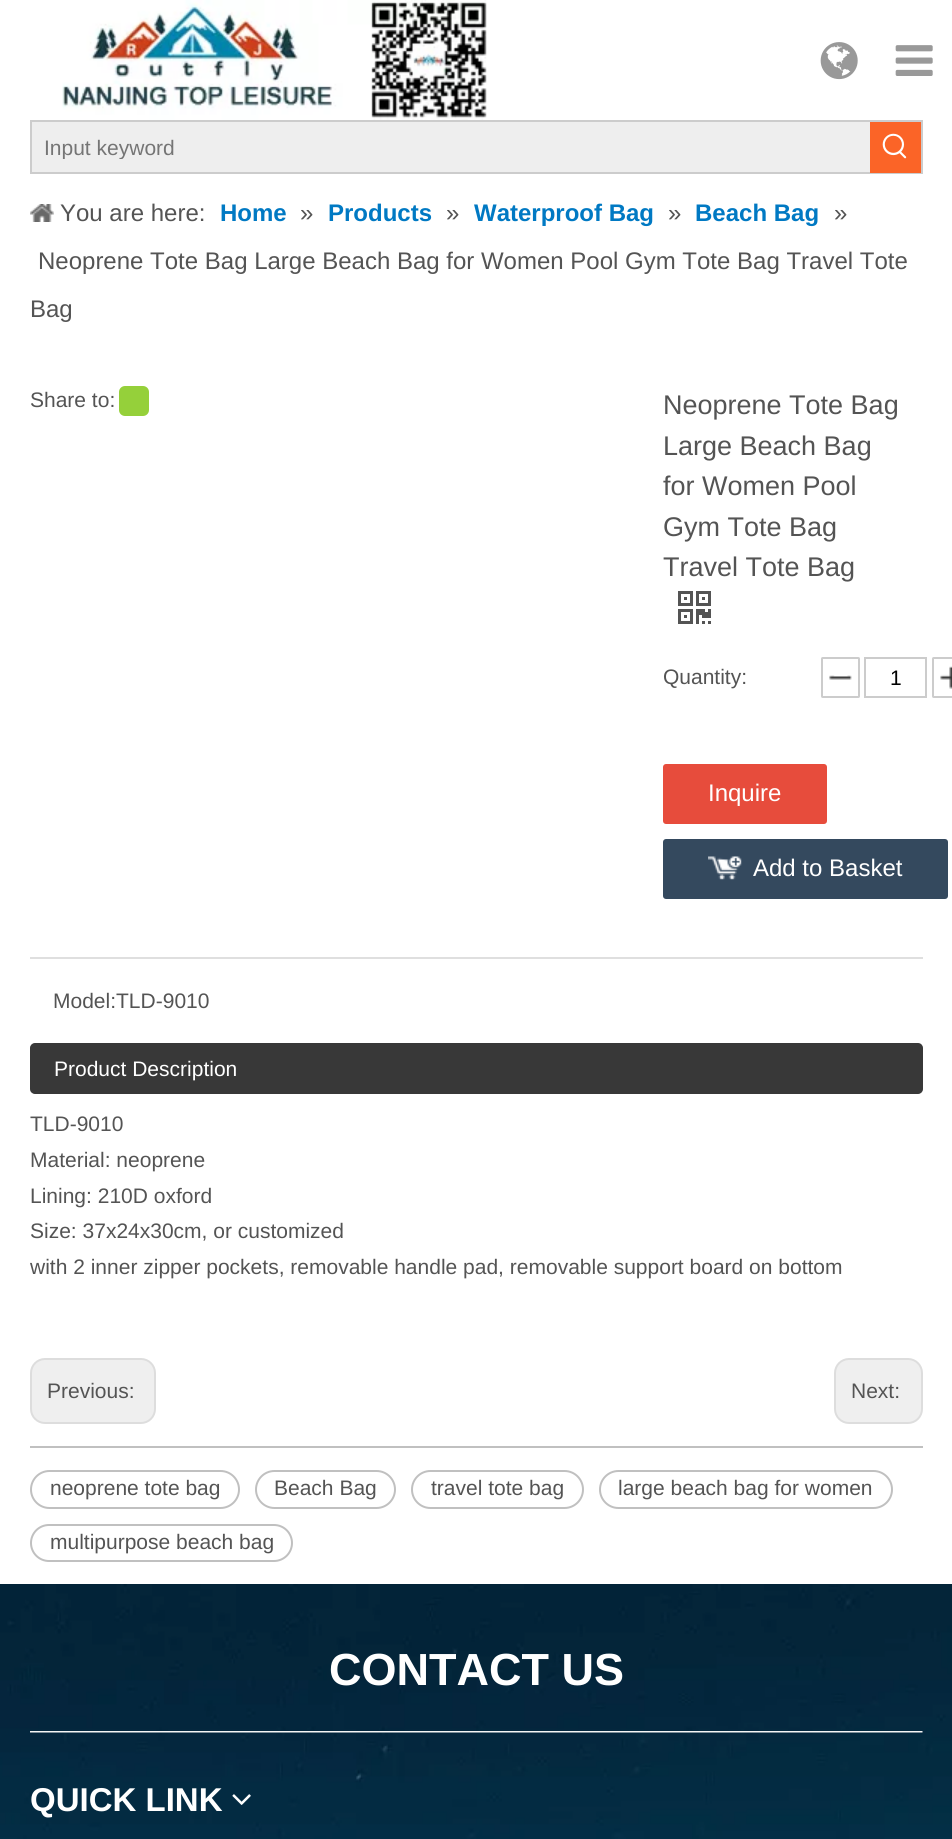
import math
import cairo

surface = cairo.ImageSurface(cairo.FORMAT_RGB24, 952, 1839)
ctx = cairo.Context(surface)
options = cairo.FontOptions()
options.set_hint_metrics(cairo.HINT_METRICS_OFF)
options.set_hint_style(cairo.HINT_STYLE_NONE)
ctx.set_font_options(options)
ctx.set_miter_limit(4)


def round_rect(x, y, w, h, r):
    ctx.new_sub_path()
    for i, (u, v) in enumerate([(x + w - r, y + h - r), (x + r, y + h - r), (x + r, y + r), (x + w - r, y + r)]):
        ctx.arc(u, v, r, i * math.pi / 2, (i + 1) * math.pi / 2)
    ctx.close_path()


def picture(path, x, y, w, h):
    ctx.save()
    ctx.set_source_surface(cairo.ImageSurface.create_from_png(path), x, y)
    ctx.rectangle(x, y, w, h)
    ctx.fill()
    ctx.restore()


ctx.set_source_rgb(1, 1, 1)
ctx.paint()
picture("img1.png", 62, 0, 425, 120)
picture("img2.png", 820, 42, 38, 38)
picture("img3.png", 895, 45, 38, 31)
ctx.set_source_rgb(0.933, 0.933, 0.933)
ctx.rectangle(32, 122, 838, 50)
ctx.fill()
ctx.rectangle(31, 121, 891, 52)
ctx.set_source_rgb(0.8, 0.8, 0.8)
ctx.stroke()
ctx.save()
ctx.rectangle(32, 135, 838, 24)
ctx.clip()
ctx.select_font_face("Liberation Sans")
ctx.set_font_size(21)
ctx.set_source_rgb(0.459, 0.459, 0.459)
ctx.move_to(44, 155)
ctx.show_text("Input keyword")
ctx.restore()
ctx.set_source_rgb(0.984, 0.392, 0.153)
ctx.rectangle(870, 122, 51, 51)
ctx.fill()
picture("img4.png", 882, 133, 25, 26)
picture("img5.png", 30, 204, 24, 18)
ctx.select_font_face("Liberation Sans")
ctx.set_font_size(24)
ctx.set_source_rgb(0.329, 0.329, 0.329)
ctx.move_to(60, 221)
ctx.show_text("You are here:")
ctx.select_font_face("Liberation Sans", cairo.FONT_SLANT_NORMAL, cairo.FONT_WEIGHT_BOLD)
ctx.set_source_rgb(0, 0.475, 0.765)
ctx.move_to(220, 221)
ctx.show_text("Home")
ctx.select_font_face("Liberation Sans")
ctx.set_source_rgb(0.329, 0.329, 0.329)
ctx.move_to(300, 221)
ctx.show_text("»")
ctx.select_font_face("Liberation Sans", cairo.FONT_SLANT_NORMAL, cairo.FONT_WEIGHT_BOLD)
ctx.set_source_rgb(0, 0.475, 0.765)
ctx.move_to(328, 221)
ctx.show_text("Products")
ctx.select_font_face("Liberation Sans")
ctx.set_source_rgb(0.329, 0.329, 0.329)
ctx.move_to(446, 221)
ctx.show_text("»")
ctx.select_font_face("Liberation Sans", cairo.FONT_SLANT_NORMAL, cairo.FONT_WEIGHT_BOLD)
ctx.set_source_rgb(0, 0.475, 0.765)
ctx.move_to(474, 221)
ctx.show_text("Waterproof Bag")
ctx.select_font_face("Liberation Sans")
ctx.set_source_rgb(0.329, 0.329, 0.329)
ctx.move_to(668, 221)
ctx.show_text("»")
ctx.select_font_face("Liberation Sans", cairo.FONT_SLANT_NORMAL, cairo.FONT_WEIGHT_BOLD)
ctx.set_source_rgb(0, 0.475, 0.765)
ctx.move_to(695, 221)
ctx.show_text("Beach Bag")
ctx.select_font_face("Liberation Sans")
ctx.set_source_rgb(0.329, 0.329, 0.329)
ctx.move_to(834, 221)
ctx.show_text("»")
ctx.move_to(38, 269)
ctx.show_text("Neoprene Tote Bag Large Beach Bag for Women Pool Gym Tote Bag Travel Tote")
ctx.move_to(30, 317)
ctx.show_text("Bag")
ctx.set_font_size(21)
ctx.move_to(30, 407)
ctx.show_text("Share to:")
ctx.set_source_rgb(0.584, 0.816, 0.227)
round_rect(119, 386, 30, 30, 6)
ctx.fill()
ctx.set_font_size(27)
ctx.set_source_rgb(0.329, 0.329, 0.329)
ctx.move_to(663, 414)
ctx.show_text("Neoprene Tote Bag")
ctx.move_to(663, 455)
ctx.show_text("Large Beach Bag")
ctx.move_to(663, 495)
ctx.show_text("for Women Pool")
ctx.move_to(663, 536)
ctx.show_text("Gym Tote Bag")
ctx.move_to(663, 576)
ctx.show_text("Travel Tote Bag")
picture("img6.png", 678, 591, 33, 33)
ctx.set_font_size(21)
ctx.move_to(663, 684)
ctx.show_text("Quantity:")
picture("img7.png", 829, 675, 23, 5)
round_rect(822, 658, 37, 39, 0.5)
ctx.set_source_rgb(0.8, 0.8, 0.8)
ctx.stroke()
ctx.rectangle(865, 658, 61, 39)
ctx.stroke()
ctx.set_source_rgb(0, 0, 0)
ctx.move_to(890, 685)
ctx.show_text("1")
picture("img8.png", 940, 666, 12, 23)
round_rect(933, 658, 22, 39, 0.5)
ctx.set_source_rgb(0.8, 0.8, 0.8)
ctx.stroke()
ctx.set_source_rgb(0.906, 0.298, 0.235)
round_rect(663, 764, 164, 60, 3)
ctx.fill()
ctx.set_font_size(24)
ctx.set_source_rgb(1, 1, 1)
ctx.move_to(708, 801)
ctx.show_text("Inquire")
ctx.set_source_rgb(0.204, 0.286, 0.369)
round_rect(663, 839, 285, 60, 3)
ctx.fill()
picture("img9.png", 708, 856, 34, 24)
ctx.set_source_rgb(1, 1, 1)
ctx.move_to(753, 876)
ctx.show_text("Add to Basket")
ctx.set_source_rgb(0.875, 0.875, 0.875)
ctx.rectangle(30, 957, 893, 2)
ctx.fill()
ctx.set_font_size(21)
ctx.set_source_rgb(0.329, 0.329, 0.329)
ctx.move_to(53, 1008)
ctx.show_text("Model:TLD-9010")
ctx.set_source_rgb(0.22, 0.22, 0.22)
round_rect(31, 1044, 891, 49, 4)
ctx.fill_preserve()
ctx.stroke()
ctx.set_source_rgb(1, 1, 1)
ctx.move_to(54, 1076)
ctx.show_text("Product Description")
ctx.set_source_rgb(0.329, 0.329, 0.329)
ctx.move_to(30, 1131)
ctx.show_text("TLD-9010")
ctx.move_to(30, 1167)
ctx.show_text("Material: neoprene")
ctx.move_to(30, 1203)
ctx.show_text("Lining: 210D oxford")
ctx.move_to(30, 1238)
ctx.show_text("Size: 37x24x30cm, or customized")
ctx.move_to(30, 1274)
ctx.show_text("with 2 inner zipper pockets, removable handle pad, removable support board on bottom")
ctx.set_source_rgb(0.937, 0.937, 0.937)
round_rect(31, 1359, 124, 64, 14)
ctx.fill_preserve()
ctx.set_source_rgb(0.867, 0.867, 0.867)
ctx.stroke()
ctx.set_source_rgb(0.329, 0.329, 0.329)
ctx.move_to(47, 1398)
ctx.show_text("Previous:")
ctx.set_source_rgb(0.937, 0.937, 0.937)
round_rect(835, 1359, 87, 64, 14)
ctx.fill_preserve()
ctx.set_source_rgb(0.867, 0.867, 0.867)
ctx.stroke()
ctx.set_source_rgb(0.329, 0.329, 0.329)
ctx.move_to(851, 1398)
ctx.show_text("Next:")
ctx.set_source_rgb(0.753, 0.753, 0.753)
ctx.rectangle(30, 1446, 893, 2)
ctx.fill()
round_rect(31, 1471, 208, 37, 18.5)
ctx.stroke()
ctx.set_source_rgb(0.329, 0.329, 0.329)
ctx.move_to(50, 1495)
ctx.show_text("neoprene tote bag")
round_rect(256, 1471, 139, 37, 18.5)
ctx.set_source_rgb(0.753, 0.753, 0.753)
ctx.stroke()
ctx.set_source_rgb(0.329, 0.329, 0.329)
ctx.move_to(274, 1495)
ctx.show_text("Beach Bag")
round_rect(412, 1471, 171, 37, 18.5)
ctx.set_source_rgb(0.753, 0.753, 0.753)
ctx.stroke()
ctx.set_source_rgb(0.329, 0.329, 0.329)
ctx.move_to(431, 1495)
ctx.show_text("travel tote bag")
round_rect(600, 1471, 292, 37, 18.5)
ctx.set_source_rgb(0.753, 0.753, 0.753)
ctx.stroke()
ctx.set_source_rgb(0.329, 0.329, 0.329)
ctx.move_to(618, 1495)
ctx.show_text("large beach bag for women")
round_rect(31, 1525, 261, 36, 18)
ctx.set_source_rgb(0.753, 0.753, 0.753)
ctx.stroke()
ctx.set_source_rgb(0.329, 0.329, 0.329)
ctx.move_to(50, 1549)
ctx.show_text("multipurpose beach bag")
picture("img10.png", 0, 1584, 952, 255)
picture("img11.png", 30, 1731, 893, 2)
ctx.select_font_face("Liberation Sans", cairo.FONT_SLANT_NORMAL, cairo.FONT_WEIGHT_BOLD)
ctx.set_font_size(45)
ctx.set_source_rgb(1, 1, 1)
ctx.move_to(329, 1685)
ctx.show_text("CONTACT US")
ctx.set_font_size(33)
ctx.move_to(30, 1811)
ctx.show_text("QUICK LINK")
picture("img12.png", 232, 1794, 19, 11)
surface.write_to_png("page.png")
